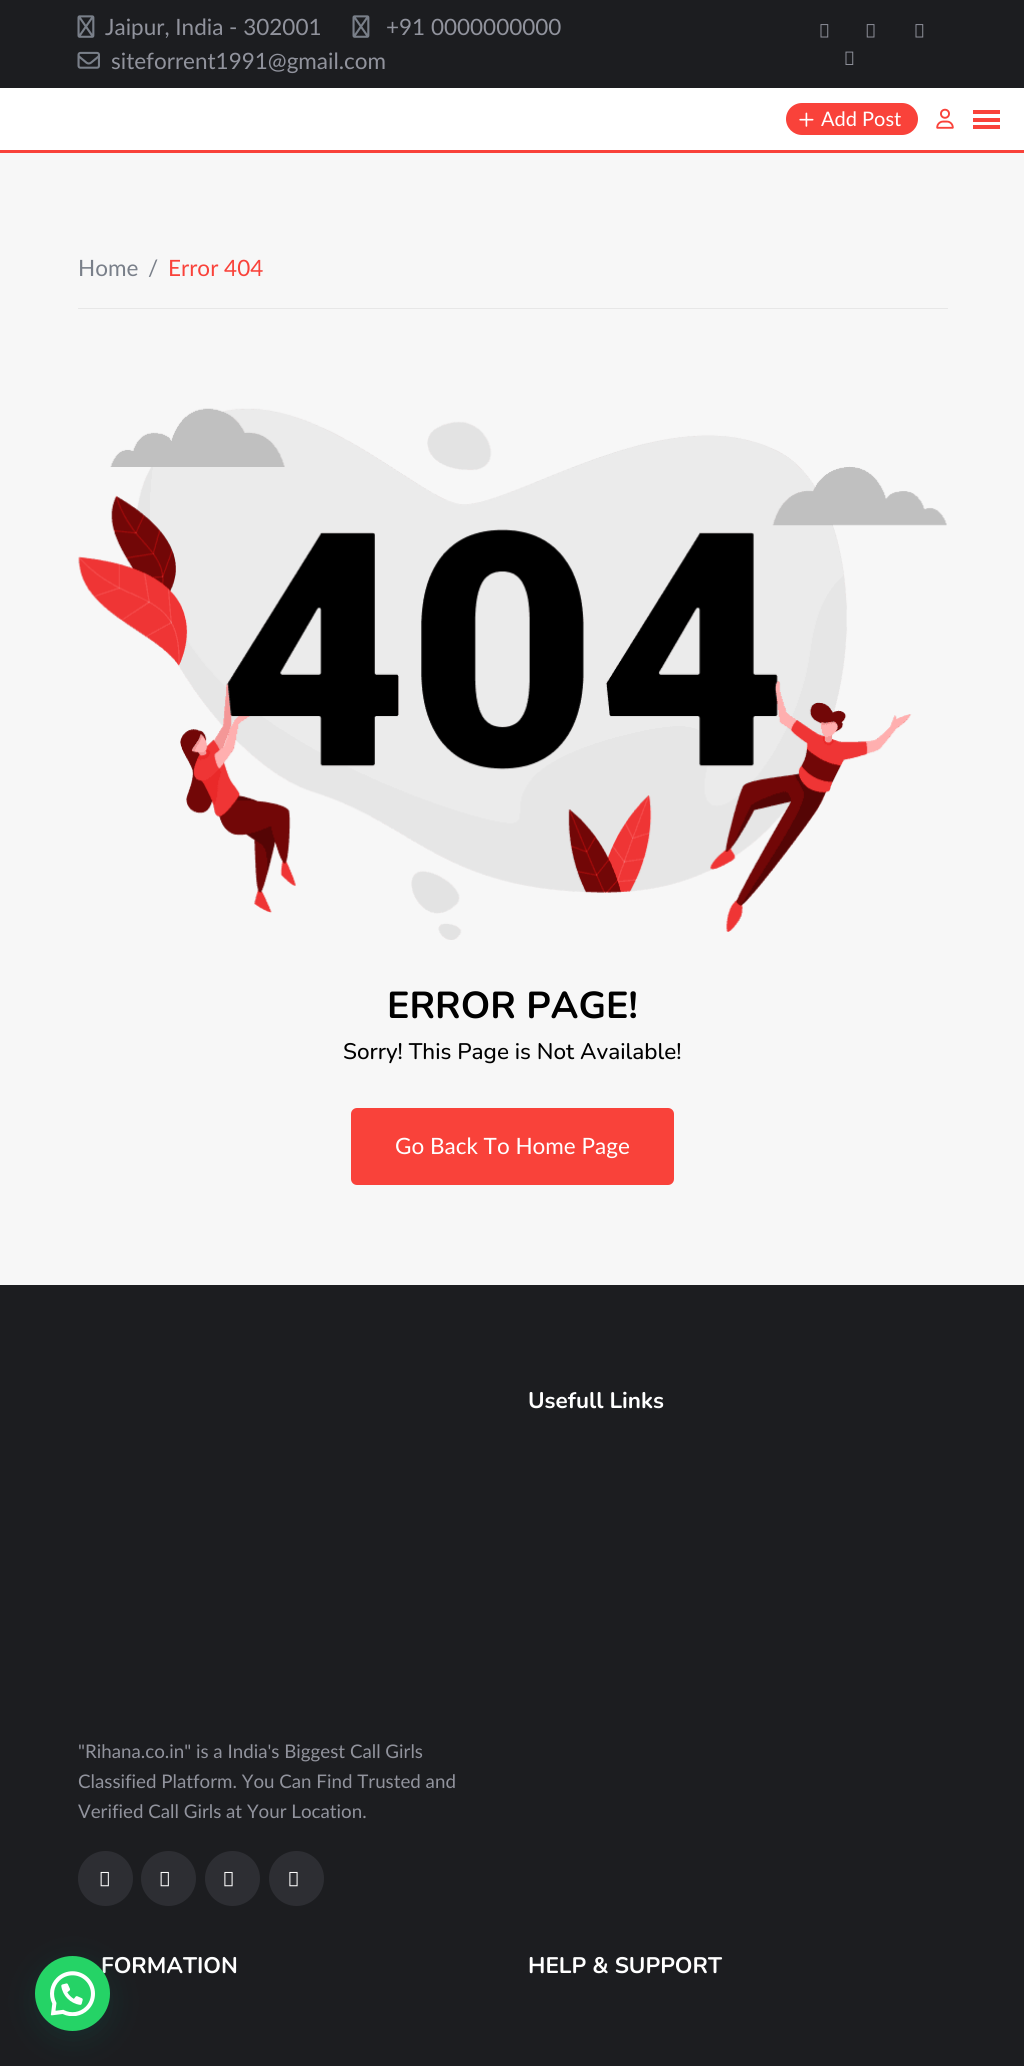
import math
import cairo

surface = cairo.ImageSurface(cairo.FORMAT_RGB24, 1024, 2066)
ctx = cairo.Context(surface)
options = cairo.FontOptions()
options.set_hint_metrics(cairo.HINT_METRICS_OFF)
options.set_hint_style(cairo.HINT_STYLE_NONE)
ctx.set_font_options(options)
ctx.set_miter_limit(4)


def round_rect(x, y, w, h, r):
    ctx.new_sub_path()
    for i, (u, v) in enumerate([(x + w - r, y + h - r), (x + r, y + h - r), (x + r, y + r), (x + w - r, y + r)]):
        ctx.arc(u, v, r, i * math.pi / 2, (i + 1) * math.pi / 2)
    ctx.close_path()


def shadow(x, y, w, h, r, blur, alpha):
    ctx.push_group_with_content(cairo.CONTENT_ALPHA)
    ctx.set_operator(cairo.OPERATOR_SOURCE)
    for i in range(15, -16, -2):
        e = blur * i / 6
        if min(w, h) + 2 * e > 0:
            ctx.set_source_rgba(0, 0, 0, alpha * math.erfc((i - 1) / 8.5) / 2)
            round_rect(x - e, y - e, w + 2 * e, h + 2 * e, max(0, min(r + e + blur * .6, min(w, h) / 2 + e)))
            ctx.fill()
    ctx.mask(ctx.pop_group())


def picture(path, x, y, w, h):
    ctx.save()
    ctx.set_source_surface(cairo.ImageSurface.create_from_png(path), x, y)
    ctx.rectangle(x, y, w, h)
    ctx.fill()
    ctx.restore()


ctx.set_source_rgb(0.965, 0.965, 0.965)
ctx.paint()
ctx.set_source_rgb(0.11, 0.114, 0.125)
ctx.rectangle(0, 0, 1024, 88)
ctx.fill()
picture("img1.png", 77, 15, 18, 23)
ctx.select_font_face("Lato")
ctx.set_font_size(22.5)
ctx.set_source_rgb(0.569, 0.576, 0.616)
ctx.move_to(105, 35)
ctx.show_text("Jaipur, India - 302001")
picture("img1.png", 352, 15, 18, 23)
ctx.move_to(386, 35)
ctx.show_text("+91 0000000000")
picture("img2.png", 77, 51, 23, 18)
ctx.move_to(111, 69)
ctx.show_text("siteforrent1991@gmail.com")
picture("img3.png", 820, 24, 9, 14)
picture("img4.png", 866, 24, 9, 14)
picture("img3.png", 915, 24, 9, 14)
picture("img5.png", 845, 51, 9, 14)
ctx.set_source_rgb(1, 1, 1)
ctx.rectangle(0, 88, 1024, 62)
ctx.fill()
ctx.set_source_rgb(0.976, 0.259, 0.227)
ctx.rectangle(0, 150, 1024, 3)
ctx.fill()
round_rect(786, 103, 132, 32, 16)
ctx.fill()
picture("img6.png", 799, 112, 15, 15)
ctx.set_font_size(20)
ctx.set_source_rgb(1, 1, 1)
ctx.move_to(821, 126)
ctx.show_text("Add Post")
picture("img7.png", 936, 108, 18, 21)
ctx.set_source_rgb(0.976, 0.259, 0.227)
ctx.rectangle(973, 110, 27, 4)
ctx.fill()
ctx.rectangle(973, 118, 27, 4)
ctx.fill()
ctx.rectangle(973, 125, 27, 4)
ctx.fill()
ctx.set_source_rgb(0.906, 0.906, 0.906)
ctx.rectangle(78, 308, 870, 1)
ctx.fill()
ctx.set_font_size(22.5)
ctx.set_source_rgb(0.475, 0.498, 0.537)
ctx.move_to(78, 276)
ctx.show_text("Home")
ctx.move_to(148, 276)
ctx.show_text("/")
ctx.set_source_rgb(0.976, 0.259, 0.227)
ctx.move_to(168, 276)
ctx.show_text("Error 404")
picture("img8.png", 78, 408, 869, 532)
ctx.select_font_face("Nunito", cairo.FONT_SLANT_NORMAL, cairo.FONT_WEIGHT_BOLD)
ctx.set_font_size(37.5)
ctx.set_source_rgb(0, 0, 0)
ctx.move_to(387, 1018)
ctx.show_text("ERROR PAGE!")
ctx.select_font_face("Nunito Medium")
ctx.set_font_size(22.5)
ctx.move_to(343, 1059)
ctx.show_text("Sorry! This Page is Not Available!")
ctx.set_source_rgb(0.976, 0.259, 0.227)
round_rect(351, 1108, 323, 77, 6)
ctx.fill()
ctx.select_font_face("Lato")
ctx.set_source_rgb(1, 1, 1)
ctx.move_to(395, 1154)
ctx.show_text("Go Back To Home Page")
ctx.set_source_rgb(0.11, 0.114, 0.125)
ctx.rectangle(0, 1285, 1024, 781)
ctx.fill()
ctx.select_font_face("Nunito", cairo.FONT_SLANT_NORMAL, cairo.FONT_WEIGHT_BOLD)
ctx.set_source_rgb(1, 1, 1)
ctx.move_to(528, 1408)
ctx.show_text("Usefull Links")
ctx.select_font_face("Lato")
ctx.set_font_size(18.75)
ctx.set_source_rgb(0.569, 0.576, 0.616)
ctx.move_to(78, 1758)
ctx.show_text("\"Rihana.co.in\" is a India's Biggest Call Girls")
ctx.move_to(78, 1788)
ctx.show_text("Classified Platform. You Can Find Trusted and")
ctx.move_to(78, 1818)
ctx.show_text("Verified Call Girls at Your Location.")
ctx.set_source_rgb(0.176, 0.18, 0.2)
ctx.new_path()
ctx.arc(105.5, 1878.5, 27.5, 0, 2 * math.pi)
ctx.fill()
picture("img9.png", 100, 1871, 9, 16)
ctx.arc(168.5, 1878.5, 27.5, 0, 2 * math.pi)
ctx.fill()
picture("img9.png", 160, 1871, 9, 16)
ctx.arc(232.5, 1878.5, 27.5, 0, 2 * math.pi)
ctx.fill()
picture("img10.png", 224, 1871, 9, 16)
ctx.arc(296.5, 1878.5, 27.5, 0, 2 * math.pi)
ctx.fill()
picture("img10.png", 289, 1871, 9, 16)
ctx.select_font_face("Nunito", cairo.FONT_SLANT_NORMAL, cairo.FONT_WEIGHT_BOLD)
ctx.set_font_size(22.5)
ctx.set_source_rgb(1, 1, 1)
ctx.move_to(101, 1973)
ctx.show_text("FORMATION")
ctx.move_to(528, 1973)
ctx.show_text("HELP & SUPPORT")
ctx.set_source_rgb(0.027, 0.369, 0.329)
shadow(36, 1964, 75, 75, 37.5, 15, 0.24)
ctx.set_source_rgb(0.145, 0.827, 0.4)
ctx.arc(72.5, 1993.5, 37.5, 0, 2 * math.pi)
ctx.fill()
picture("img11.png", 50, 1971, 45, 45)
surface.write_to_png("page.png")
